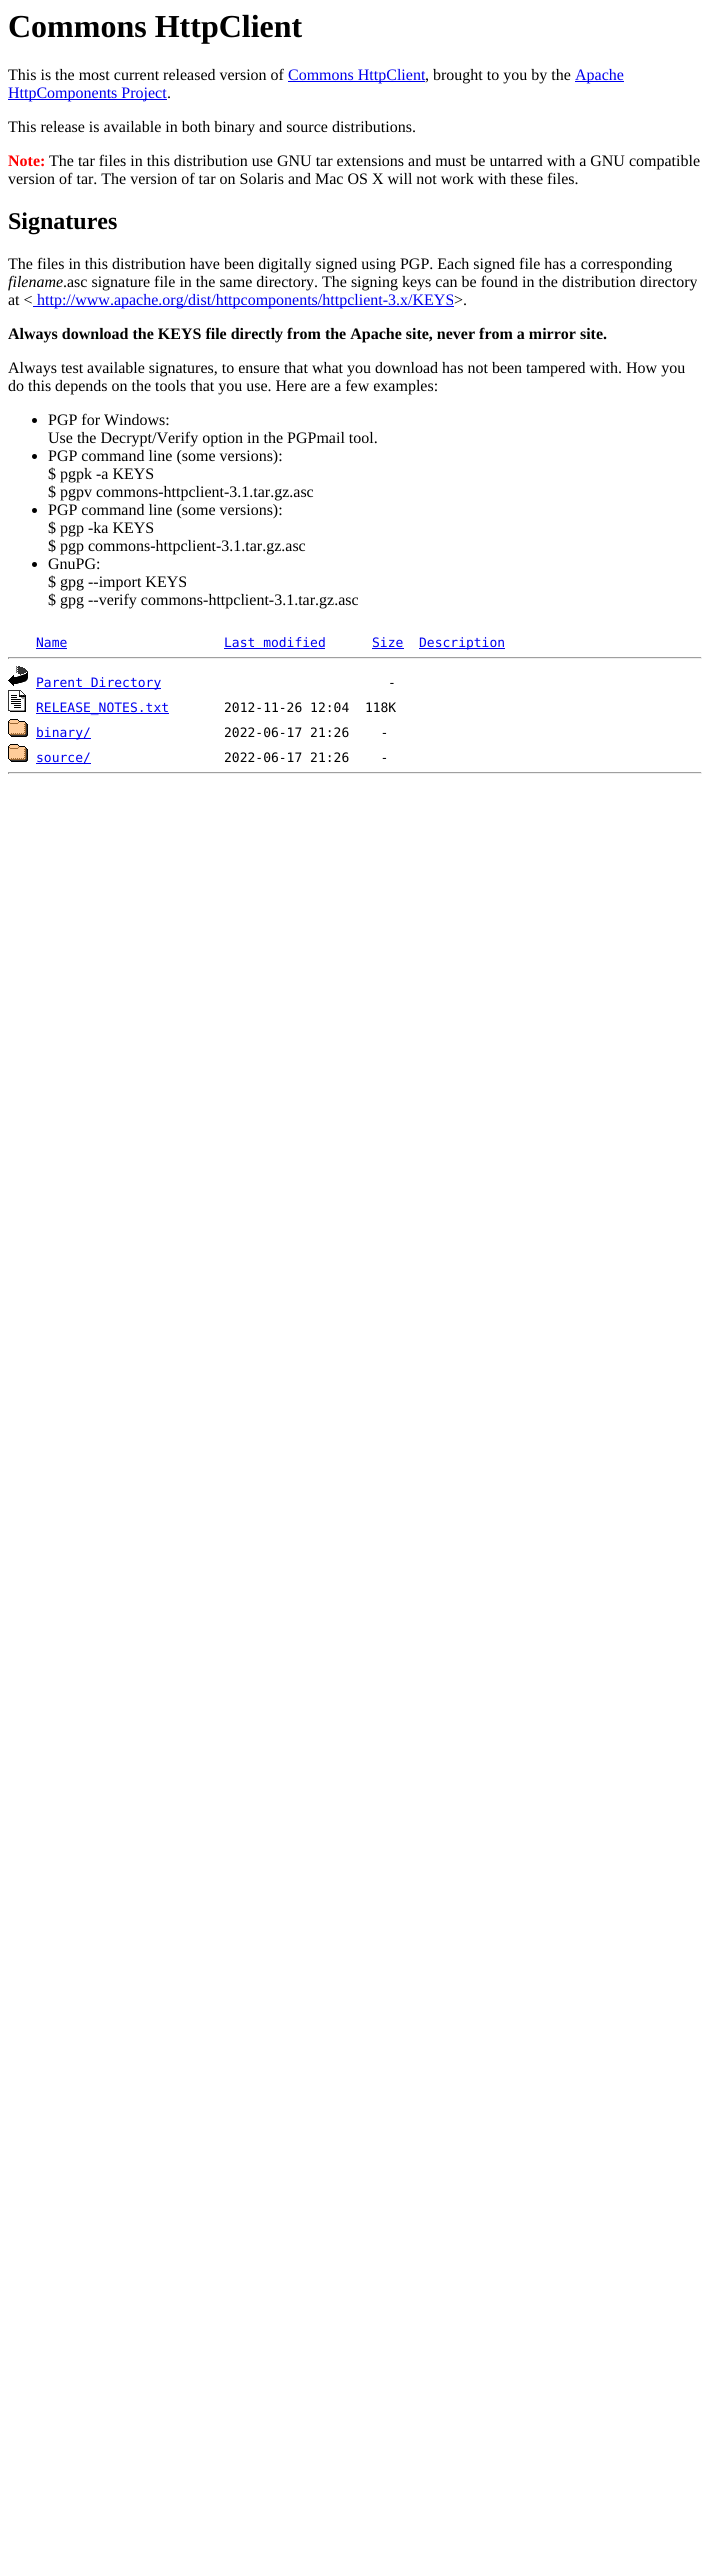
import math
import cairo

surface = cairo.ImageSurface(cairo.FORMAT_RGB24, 710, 2554)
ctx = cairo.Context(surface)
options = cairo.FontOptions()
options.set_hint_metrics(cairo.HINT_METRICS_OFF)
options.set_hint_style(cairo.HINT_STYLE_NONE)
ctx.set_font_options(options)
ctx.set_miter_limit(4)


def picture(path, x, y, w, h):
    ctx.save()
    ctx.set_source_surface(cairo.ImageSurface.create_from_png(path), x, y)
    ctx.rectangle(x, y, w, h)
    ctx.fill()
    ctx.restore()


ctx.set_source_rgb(1, 1, 1)
ctx.paint()
ctx.select_font_face("Liberation Serif", cairo.FONT_SLANT_NORMAL, cairo.FONT_WEIGHT_BOLD)
ctx.set_font_size(32)
ctx.set_source_rgb(0, 0, 0)
ctx.move_to(8, 37)
ctx.show_text("Commons HttpClient")
ctx.select_font_face("Liberation Serif")
ctx.set_font_size(16)
ctx.move_to(8, 80)
ctx.show_text("This is the most current released version of")
ctx.set_source_rgb(0, 0, 0.933)
ctx.rectangle(288, 81, 137, 1)
ctx.fill()
ctx.move_to(288, 80)
ctx.show_text("Commons HttpClient")
ctx.set_source_rgb(0, 0, 0)
ctx.move_to(425, 80)
ctx.show_text(", brought to you by the")
ctx.set_source_rgb(0, 0, 0.933)
ctx.rectangle(575, 81, 49, 1)
ctx.fill()
ctx.move_to(575, 80)
ctx.show_text("Apache")
ctx.rectangle(8, 99, 159, 1)
ctx.fill()
ctx.move_to(8, 98)
ctx.show_text("HttpComponents Project")
ctx.set_source_rgb(0, 0, 0)
ctx.move_to(167, 98)
ctx.show_text(".")
ctx.move_to(8, 132)
ctx.show_text("This release is available in both binary and source distributions.")
ctx.select_font_face("Liberation Serif", cairo.FONT_SLANT_NORMAL, cairo.FONT_WEIGHT_BOLD)
ctx.set_source_rgb(1, 0, 0)
ctx.move_to(8, 166)
ctx.show_text("Note:")
ctx.select_font_face("Liberation Serif")
ctx.set_source_rgb(0, 0, 0)
ctx.move_to(49, 166)
ctx.show_text("The tar files in this distribution use GNU tar extensions and must be untarred with a GNU compatible")
ctx.move_to(8, 184)
ctx.show_text("version of tar. The version of tar on Solaris and Mac OS X will not work with these files.")
ctx.select_font_face("Liberation Serif", cairo.FONT_SLANT_NORMAL, cairo.FONT_WEIGHT_BOLD)
ctx.set_font_size(24)
ctx.move_to(8, 229)
ctx.show_text("Signatures")
ctx.select_font_face("Liberation Serif")
ctx.set_font_size(16)
ctx.move_to(8, 269)
ctx.show_text("The files in this distribution have been digitally signed using PGP. Each signed file has a corresponding")
ctx.select_font_face("Liberation Serif", cairo.FONT_SLANT_ITALIC)
ctx.move_to(8, 287)
ctx.show_text("filename")
ctx.select_font_face("Liberation Serif")
ctx.move_to(63, 287)
ctx.show_text(".asc signature file in the same directory. The signing keys can be found in the distribution directory")
ctx.move_to(8, 305)
ctx.show_text("at <")
ctx.set_source_rgb(0, 0, 0.933)
ctx.rectangle(33, 306, 421, 1)
ctx.fill()
ctx.move_to(37, 305)
ctx.show_text("http://www.apache.org/dist/httpcomponents/httpclient-3.x/KEYS")
ctx.set_source_rgb(0, 0, 0)
ctx.move_to(454, 305)
ctx.show_text(">.")
ctx.select_font_face("Liberation Serif", cairo.FONT_SLANT_NORMAL, cairo.FONT_WEIGHT_BOLD)
ctx.move_to(8, 339)
ctx.show_text("Always download the KEYS file directly from the Apache site, never from a mirror site.")
ctx.select_font_face("Liberation Serif")
ctx.move_to(8, 373)
ctx.show_text("Always test available signatures, to ensure that what you download has not been tampered with. How you")
ctx.move_to(8, 391)
ctx.show_text("do this depends on the tools that you use. Here are a few examples:")
ctx.new_path()
ctx.arc(34.5, 420.5, 2.5, 0, 2 * math.pi)
ctx.fill()
ctx.move_to(48, 425)
ctx.show_text("PGP for Windows:")
ctx.move_to(48, 443)
ctx.show_text("Use the Decrypt/Verify option in the PGPmail tool.")
ctx.new_path()
ctx.arc(34.5, 456.5, 2.5, 0, 2 * math.pi)
ctx.fill()
ctx.move_to(48, 461)
ctx.show_text("PGP command line (some versions):")
ctx.move_to(48, 479)
ctx.show_text("$ pgpk -a KEYS")
ctx.move_to(48, 497)
ctx.show_text("$ pgpv commons-httpclient-3.1.tar.gz.asc")
ctx.new_path()
ctx.arc(34.5, 510.5, 2.5, 0, 2 * math.pi)
ctx.fill()
ctx.move_to(48, 515)
ctx.show_text("PGP command line (some versions):")
ctx.move_to(48, 533)
ctx.show_text("$ pgp -ka KEYS")
ctx.move_to(48, 551)
ctx.show_text("$ pgp commons-httpclient-3.1.tar.gz.asc")
ctx.new_path()
ctx.arc(34.5, 564.5, 2.5, 0, 2 * math.pi)
ctx.fill()
ctx.move_to(48, 569)
ctx.show_text("GnuPG:")
ctx.move_to(48, 587)
ctx.show_text("$ gpg --import KEYS")
ctx.move_to(48, 605)
ctx.show_text("$ gpg --verify commons-httpclient-3.1.tar.gz.asc")
ctx.select_font_face("DejaVu Sans Mono")
ctx.set_font_size(13)
ctx.set_source_rgb(0, 0, 0.933)
ctx.move_to(36, 647)
ctx.show_text("Name")
ctx.rectangle(36, 648, 31, 1)
ctx.fill()
ctx.move_to(224, 647)
ctx.show_text("Last modified")
ctx.rectangle(224, 648, 101, 1)
ctx.fill()
ctx.move_to(372, 647)
ctx.show_text("Size")
ctx.rectangle(372, 648, 32, 1)
ctx.fill()
ctx.rectangle(419, 648, 86, 1)
ctx.fill()
ctx.move_to(419, 647)
ctx.show_text("Description")
ctx.set_source_rgb(0.624, 0.624, 0.624)
ctx.rectangle(8, 657, 694, 1)
ctx.fill()
ctx.set_source_rgb(0.933, 0.933, 0.933)
ctx.rectangle(701, 657, 1, 2)
ctx.fill()
ctx.rectangle(8, 658, 694, 1)
ctx.fill()
ctx.set_source_rgb(0.624, 0.624, 0.624)
ctx.rectangle(8, 657, 1, 2)
ctx.fill()
picture("img1.png", 8, 666, 20, 20)
ctx.set_source_rgb(0, 0, 0.933)
ctx.rectangle(36, 688, 125, 1)
ctx.fill()
ctx.move_to(36, 687)
ctx.show_text("Parent Directory")
ctx.set_source_rgb(0, 0, 0)
ctx.move_to(388, 687)
ctx.show_text("-")
picture("img2.png", 8, 690, 18, 22)
ctx.set_source_rgb(0, 0, 0.933)
ctx.rectangle(36, 713, 133, 1)
ctx.fill()
ctx.move_to(36, 712)
ctx.show_text("RELEASE_NOTES.txt")
ctx.set_source_rgb(0, 0, 0)
ctx.move_to(224, 712)
ctx.show_text("2012-11-26 12:04  118K")
picture("img3.png", 8, 719, 20, 18)
ctx.set_source_rgb(0, 0, 0.933)
ctx.rectangle(36, 738, 55, 1)
ctx.fill()
ctx.move_to(36, 737)
ctx.show_text("binary/")
ctx.set_source_rgb(0, 0, 0)
ctx.move_to(224, 737)
ctx.show_text("2022-06-17 21:26    -")
picture("img3.png", 8, 744, 20, 18)
ctx.set_source_rgb(0, 0, 0.933)
ctx.rectangle(36, 763, 55, 1)
ctx.fill()
ctx.move_to(36, 762)
ctx.show_text("source/")
ctx.set_source_rgb(0, 0, 0)
ctx.move_to(224, 762)
ctx.show_text("2022-06-17 21:26    -")
ctx.set_source_rgb(0.624, 0.624, 0.624)
ctx.rectangle(8, 772, 694, 1)
ctx.fill()
ctx.set_source_rgb(0.933, 0.933, 0.933)
ctx.rectangle(701, 772, 1, 2)
ctx.fill()
ctx.rectangle(8, 773, 694, 1)
ctx.fill()
ctx.set_source_rgb(0.624, 0.624, 0.624)
ctx.rectangle(8, 772, 1, 2)
ctx.fill()
surface.write_to_png("page.png")
